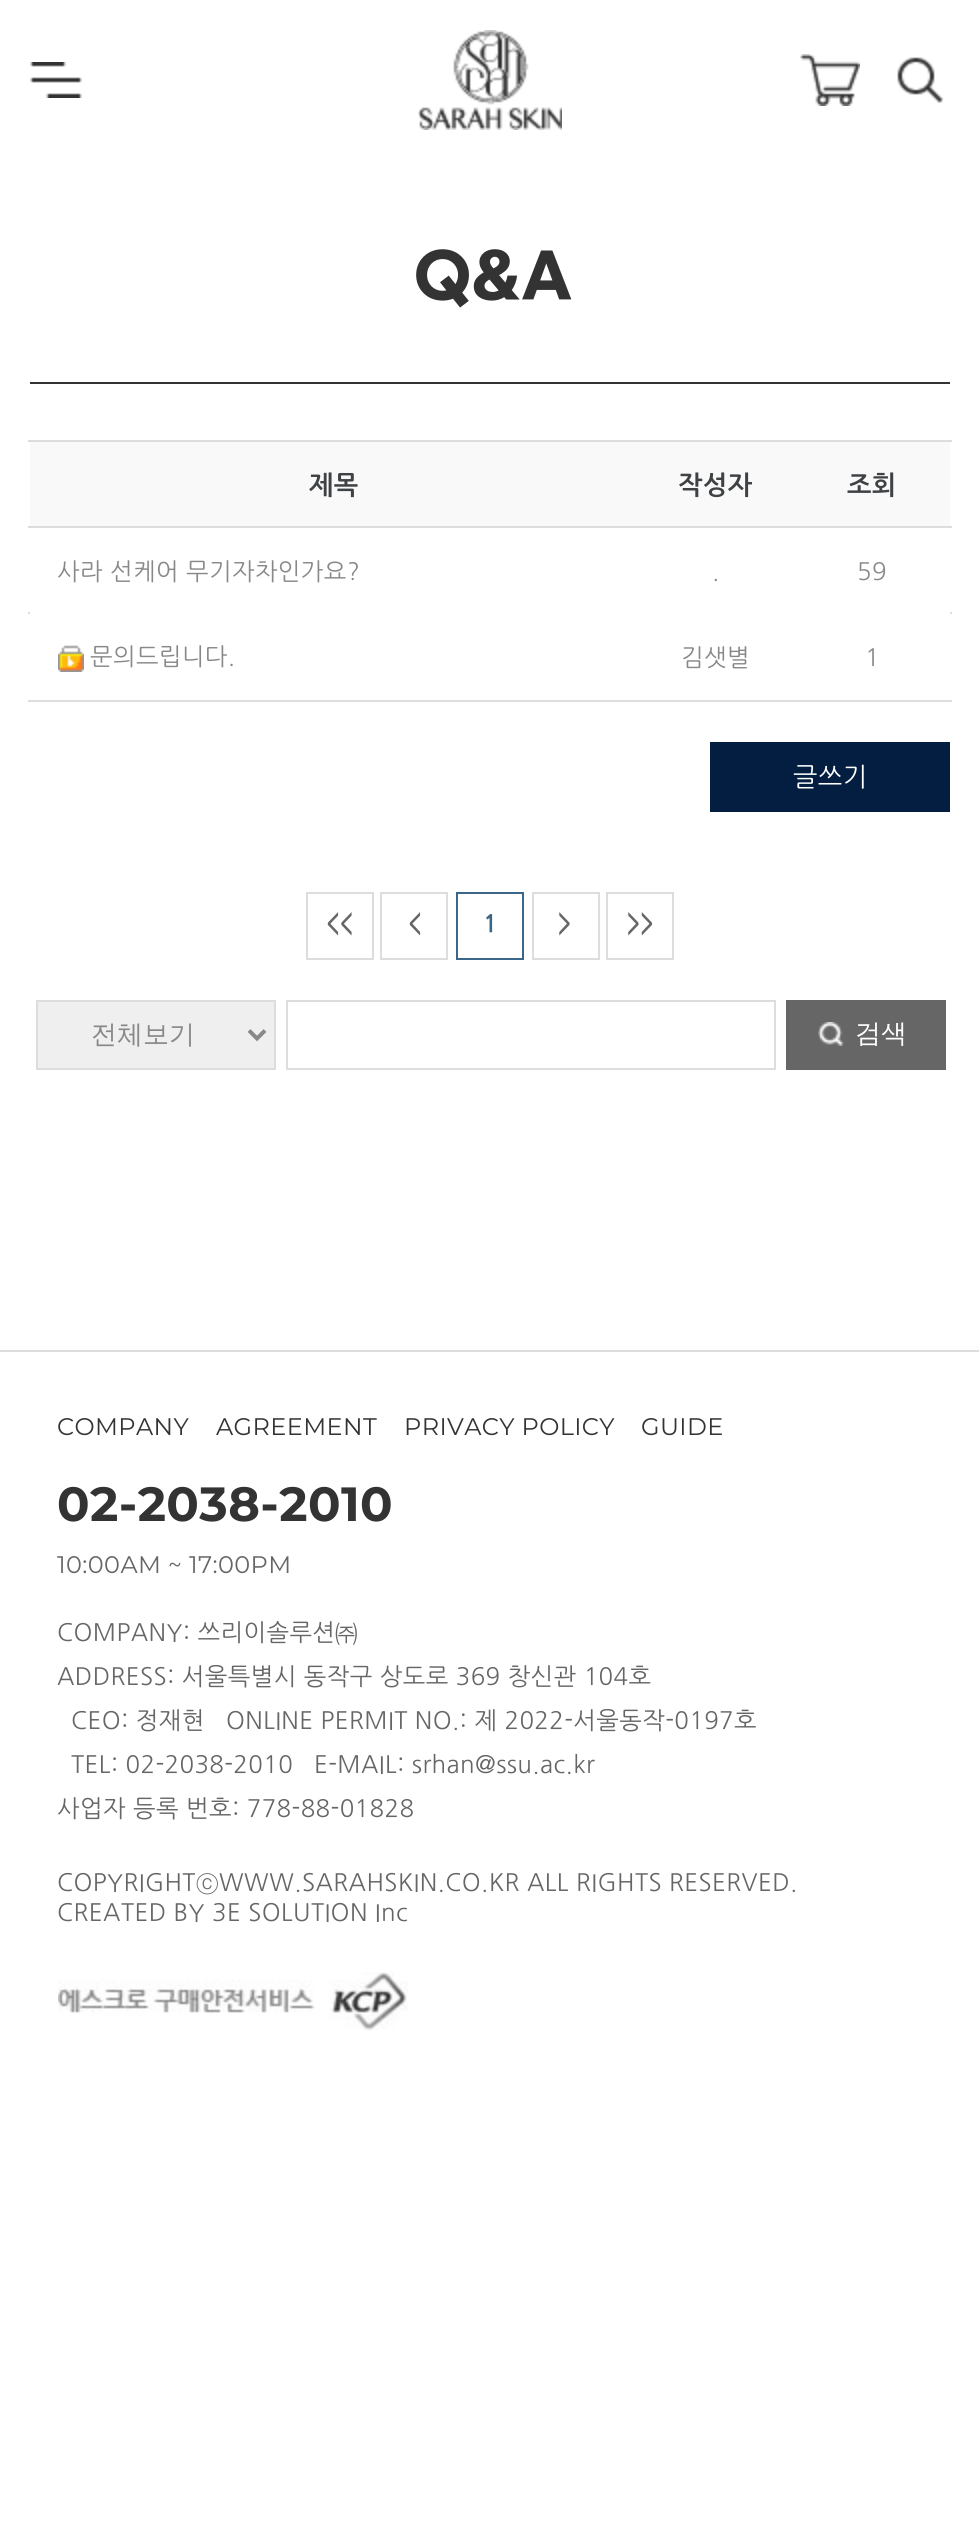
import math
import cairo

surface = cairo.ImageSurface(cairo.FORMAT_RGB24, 979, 2545)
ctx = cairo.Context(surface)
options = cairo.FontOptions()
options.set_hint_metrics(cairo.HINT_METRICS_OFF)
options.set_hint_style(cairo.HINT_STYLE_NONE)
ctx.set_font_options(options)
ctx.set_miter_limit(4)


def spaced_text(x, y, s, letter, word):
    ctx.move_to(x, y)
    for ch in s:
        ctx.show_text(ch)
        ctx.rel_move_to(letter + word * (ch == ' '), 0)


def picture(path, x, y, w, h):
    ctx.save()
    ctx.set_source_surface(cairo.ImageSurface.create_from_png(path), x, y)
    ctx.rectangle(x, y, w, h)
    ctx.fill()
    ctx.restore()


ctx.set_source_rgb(1, 1, 1)
ctx.paint()
picture("img1.png", 30, 62, 52, 36)
picture("img2.png", 418, 30, 144, 100)
picture("img3.png", 800, 54, 60, 52)
picture("img4.png", 897, 57, 47, 47)
ctx.set_source_rgb(0.2, 0.2, 0.2)
ctx.rectangle(30, 382, 920, 2)
ctx.fill()
ctx.select_font_face("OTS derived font", cairo.FONT_SLANT_NORMAL, cairo.FONT_WEIGHT_BOLD)
ctx.set_font_size(60)
spaced_text(414, 294, "Q&A", 0.4, 0)
ctx.set_source_rgb(0.867, 0.867, 0.867)
ctx.rectangle(28, 440, 924, 2)
ctx.fill()
ctx.set_source_rgb(0.976, 0.976, 0.976)
ctx.rectangle(30, 442, 920, 84)
ctx.fill()
ctx.select_font_face("NanumGothic", cairo.FONT_SLANT_NORMAL, cairo.FONT_WEIGHT_BOLD)
ctx.set_font_size(26)
ctx.set_source_rgb(0.247, 0.259, 0.267)
spaced_text(309, 493, "제목", 0.4, 0)
spaced_text(678, 493, "작성자", 0.4, 0)
ctx.set_source_rgb(0.867, 0.867, 0.867)
ctx.rectangle(28, 526, 924, 2)
ctx.fill()
ctx.set_source_rgb(0.247, 0.259, 0.267)
spaced_text(847, 493, "조회", 0.4, 0)
ctx.set_source_rgb(0.867, 0.867, 0.867)
ctx.rectangle(28, 612, 2, 2)
ctx.fill()
ctx.select_font_face("NanumGothic")
ctx.set_font_size(24)
ctx.set_source_rgb(0.533, 0.533, 0.533)
spaced_text(57, 579, "사라 선케어 무기자차인가요?", 0.4, 0)
spaced_text(712, 579, ".", 0.4, 0)
ctx.set_source_rgb(0.867, 0.867, 0.867)
ctx.rectangle(950, 612, 2, 2)
ctx.fill()
ctx.set_source_rgb(0.533, 0.533, 0.533)
spaced_text(857, 579, "59", 0.4, 0)
picture("img5.png", 58, 645, 26, 27)
spaced_text(90, 664, "문의드립니다.", 0.4, 0)
spaced_text(681, 665, "김샛별", 0.4, 0)
ctx.set_source_rgb(0.867, 0.867, 0.867)
ctx.rectangle(28, 700, 924, 2)
ctx.fill()
ctx.set_source_rgb(0.533, 0.533, 0.533)
spaced_text(865, 665, "1", 0.4, 0)
ctx.set_source_rgb(0.016, 0.118, 0.255)
ctx.rectangle(710, 742, 240, 70)
ctx.fill()
ctx.set_font_size(26)
ctx.set_source_rgb(1, 1, 1)
spaced_text(793, 785, "글쓰기", 0.4, 0)
ctx.rectangle(307, 893, 66, 66)
ctx.set_source_rgb(0.867, 0.867, 0.867)
ctx.stroke()
ctx.select_font_face("NanumGothic", cairo.FONT_SLANT_NORMAL, cairo.FONT_WEIGHT_BOLD)
ctx.set_font_size(24)
ctx.set_source_rgb(0.4, 0.4, 0.4)
spaced_text(326, 931, "<<", 0.4, 0)
ctx.rectangle(381, 893, 66, 66)
ctx.set_source_rgb(0.867, 0.867, 0.867)
ctx.stroke()
ctx.set_source_rgb(0.4, 0.4, 0.4)
spaced_text(408, 931, "<", 0.4, 0)
ctx.rectangle(457, 893, 66, 66)
ctx.set_source_rgb(0.227, 0.404, 0.537)
ctx.stroke()
spaced_text(483, 931, "1", 0.4, 0)
ctx.rectangle(533, 893, 66, 66)
ctx.set_source_rgb(0.867, 0.867, 0.867)
ctx.stroke()
ctx.set_source_rgb(0.4, 0.4, 0.4)
spaced_text(558, 931, ">", 0.4, 0)
ctx.rectangle(607, 893, 66, 66)
ctx.set_source_rgb(0.867, 0.867, 0.867)
ctx.stroke()
ctx.set_source_rgb(0.4, 0.4, 0.4)
spaced_text(627, 931, ">>", 0.4, 0)
ctx.set_source_rgb(0.937, 0.937, 0.937)
ctx.rectangle(37, 1001, 238, 68)
ctx.fill_preserve()
ctx.set_source_rgb(0.867, 0.867, 0.867)
ctx.stroke()
ctx.new_path()
ctx.move_to(249, 1030.5)
ctx.line_to(257, 1038.5)
ctx.line_to(265, 1030.5)
ctx.set_source_rgb(0.533, 0.533, 0.533)
ctx.set_line_width(4)
ctx.stroke()
ctx.select_font_face("WenQuanYi Zen Hei Medium")
ctx.set_font_size(26)
ctx.move_to(91, 1043)
ctx.show_text("전체보기")
ctx.rectangle(287, 1001, 488, 68)
ctx.set_source_rgb(0.867, 0.867, 0.867)
ctx.set_line_width(2)
ctx.stroke()
ctx.set_source_rgb(0.4, 0.4, 0.4)
ctx.rectangle(786, 1000, 160, 70)
ctx.fill()
picture("img6.png", 818, 1022, 26, 24)
ctx.set_source_rgb(1, 1, 1)
ctx.move_to(855, 1042)
ctx.show_text("검색")
ctx.set_source_rgb(0.867, 0.867, 0.867)
ctx.rectangle(0, 1350, 979, 2)
ctx.fill()
ctx.select_font_face("Montserrat")
ctx.set_font_size(24)
ctx.set_source_rgb(0.2, 0.2, 0.2)
spaced_text(57, 1435, "COMPANY", 0.4, 0)
spaced_text(216, 1435, "AGREEMENT", 0.4, 0)
spaced_text(404, 1435, "PRIVACY POLICY", 0.4, 0)
spaced_text(641, 1435, "GUIDE", 0.4, 0)
ctx.select_font_face("Montserrat", cairo.FONT_SLANT_NORMAL, cairo.FONT_WEIGHT_BOLD)
ctx.set_font_size(48)
spaced_text(57, 1521, "02-2038-2010", 0.4, 0)
ctx.select_font_face("Montserrat")
ctx.set_font_size(24)
ctx.set_source_rgb(0.4, 0.4, 0.4)
spaced_text(57, 1573, "10:00AM ~ 17:00PM", 0.4, 0)
ctx.select_font_face("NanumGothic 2")
spaced_text(57, 1641, "COMPANY: 쓰리이솔루션", 0.4, 0)
ctx.select_font_face("NanumGothic")
spaced_text(335, 1641, "㈜", 0.4, 0)
ctx.select_font_face("NanumGothic 2")
spaced_text(57, 1685, "ADDRESS: 서울특별시 동작구 상도로 369 창신관 104호", 0.4, 0)
spaced_text(71, 1729, "CEO: 정재현", 0.4, 0)
spaced_text(226, 1729, "ONLINE PERMIT NO.: 제 2022-서울동작-0197호", 0.4, 0)
spaced_text(71, 1773, "TEL: 02-2038-2010", 0.4, 0)
spaced_text(314, 1773, "E-MAIL: srhan@ssu.ac.kr", 0.4, 0)
spaced_text(57, 1817, "사업자 등록 번호: 778-88-01828", 0.4, 0)
spaced_text(57, 1891, "COPYRIGHT", 0.4, 0)
ctx.select_font_face("NanumGothic")
spaced_text(196, 1891, "ⓒ", 0.4, 0)
ctx.select_font_face("NanumGothic 2")
spaced_text(219, 1891, "WWW.SARAHSKIN.CO.KR ALL RIGHTS RESERVED.", 0.4, 0)
spaced_text(57, 1921, "CREATED BY 3E SOLUTION Inc", 0.4, 0)
picture("img7.png", 58, 1972, 350, 59)
surface.write_to_png("page.png")
